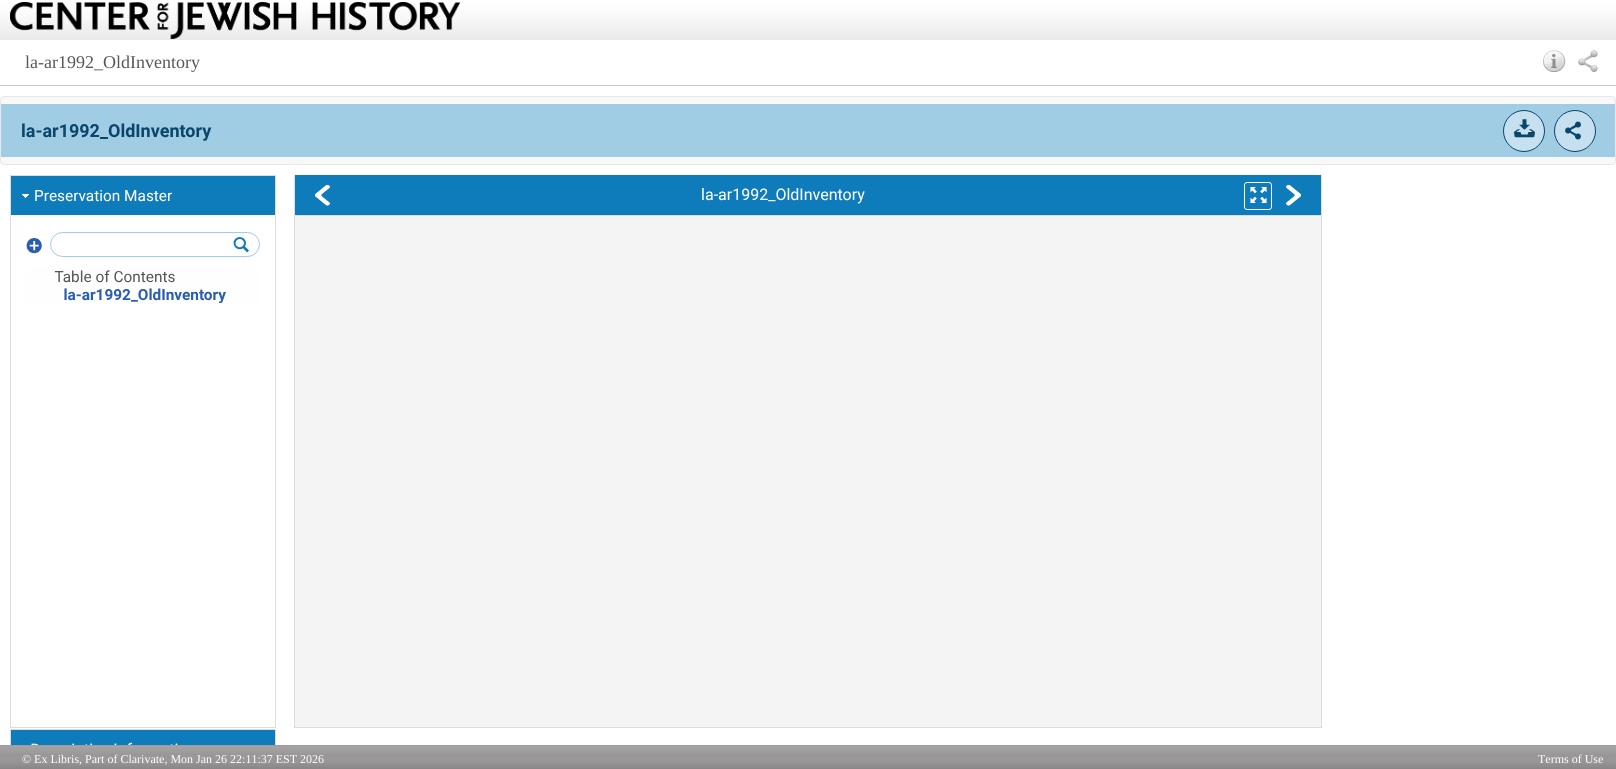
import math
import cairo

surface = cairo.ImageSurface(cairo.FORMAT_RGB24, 1616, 769)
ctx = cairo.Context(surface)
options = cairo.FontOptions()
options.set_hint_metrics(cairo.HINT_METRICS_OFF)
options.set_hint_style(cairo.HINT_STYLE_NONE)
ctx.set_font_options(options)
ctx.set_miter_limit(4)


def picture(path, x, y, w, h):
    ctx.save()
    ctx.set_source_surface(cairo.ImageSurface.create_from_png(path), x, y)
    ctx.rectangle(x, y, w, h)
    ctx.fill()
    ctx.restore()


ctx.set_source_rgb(1, 1, 1)
ctx.paint()
picture("img1.png", 0, 0, 1616, 40)
picture("img2.png", 10, 2, 450, 37)
ctx.select_font_face("Liberation Serif")
ctx.set_font_size(18)
ctx.set_source_rgb(0.345, 0.345, 0.345)
ctx.move_to(25, 68)
ctx.show_text("la-ar1992_OldInventory")
picture("img3.png", 1543, 50, 23, 22)
picture("img4.png", 1578, 50, 20, 22)
ctx.set_source_rgb(0.804, 0.804, 0.804)
ctx.rectangle(0, 85, 1616, 1)
ctx.fill()
picture("img5.png", 0, 96, 1616, 649)
ctx.set_source_rgb(0.6, 0.592, 0.592)
ctx.rectangle(0, 746, 1616, 23)
ctx.fill()
picture("img6.png", 0, 745, 1616, 24)
ctx.set_font_size(12)
ctx.set_source_rgb(1, 1, 1)
ctx.move_to(22, 763)
ctx.show_text("© Ex Libris, Part of Clarivate, Mon Jan 26 22:11:37 EST 2026")
ctx.move_to(1538, 763)
ctx.show_text("Terms of Use")
surface.write_to_png("page.png")
